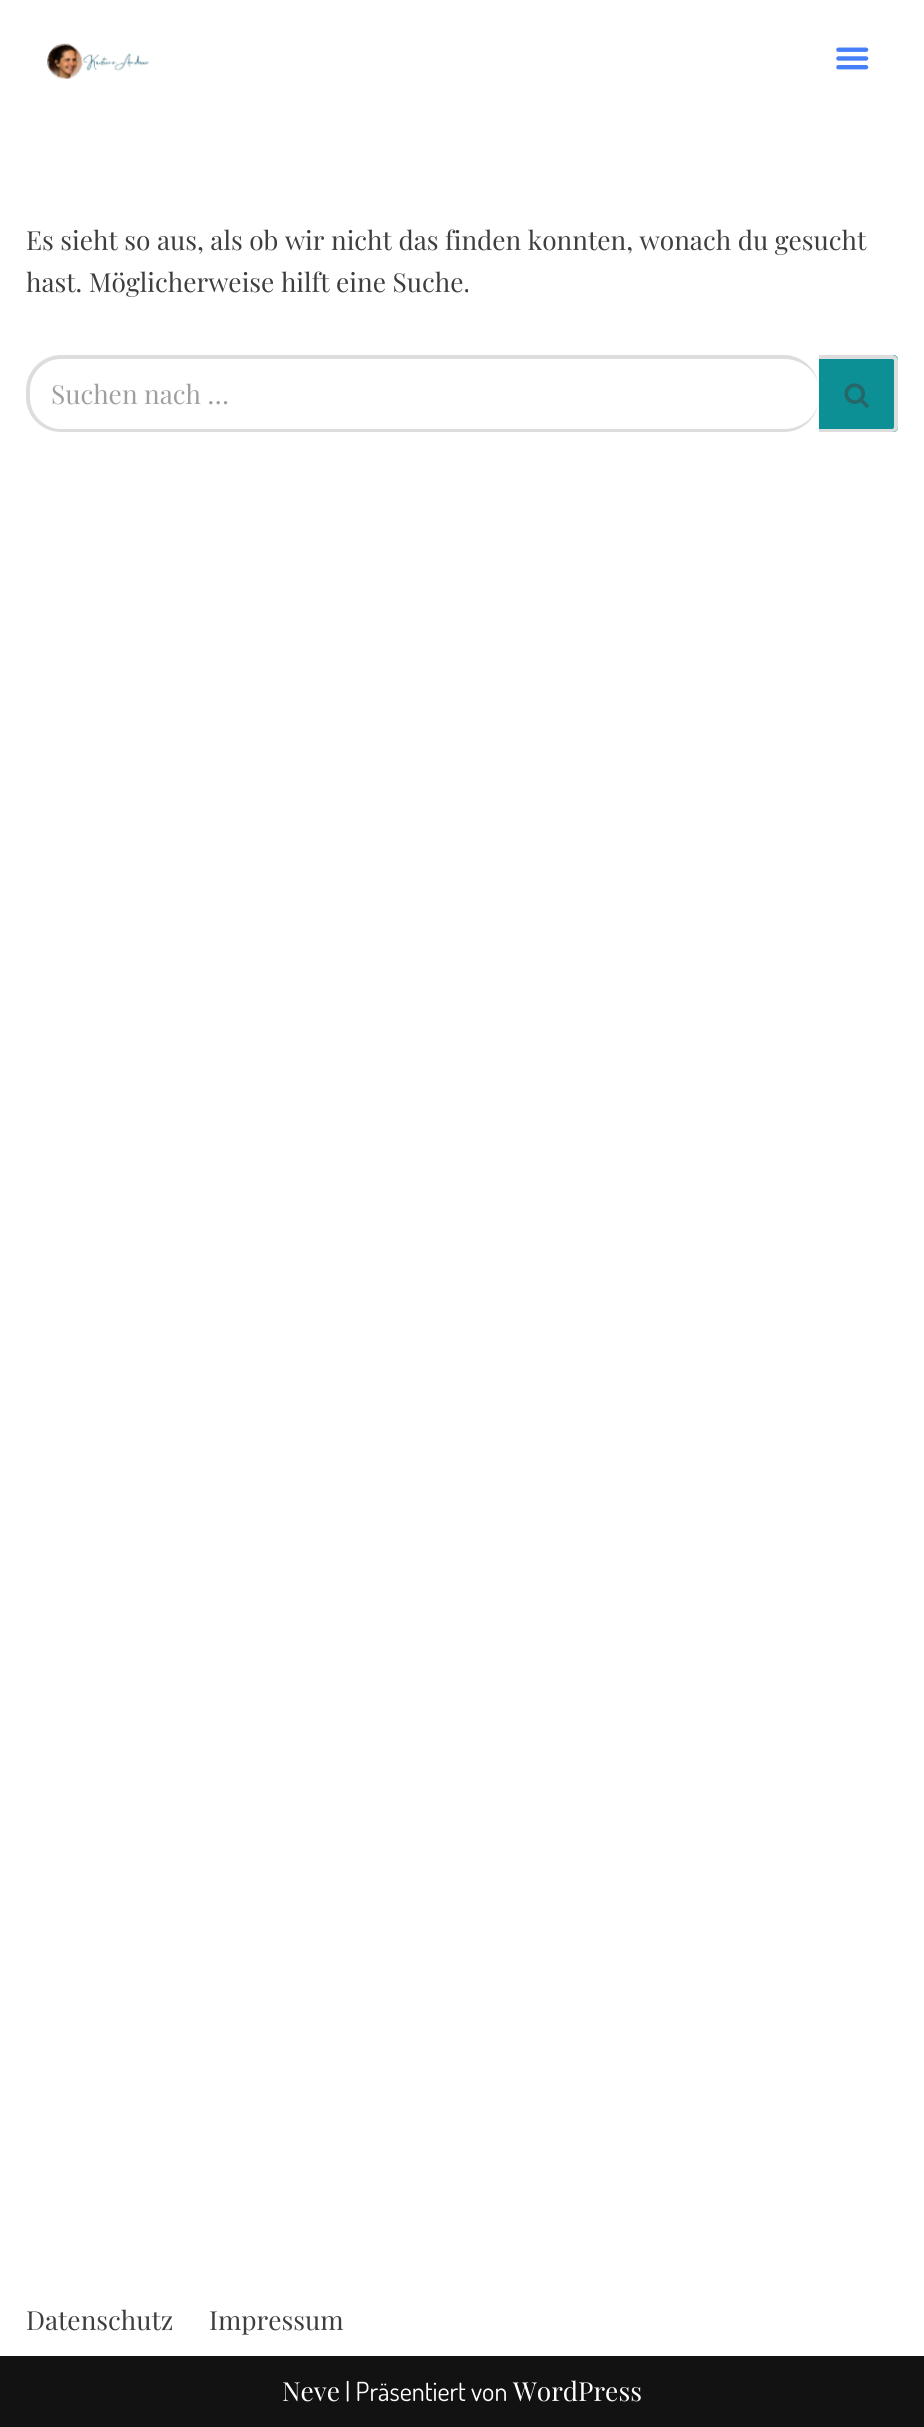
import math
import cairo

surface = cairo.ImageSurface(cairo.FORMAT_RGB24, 924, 2427)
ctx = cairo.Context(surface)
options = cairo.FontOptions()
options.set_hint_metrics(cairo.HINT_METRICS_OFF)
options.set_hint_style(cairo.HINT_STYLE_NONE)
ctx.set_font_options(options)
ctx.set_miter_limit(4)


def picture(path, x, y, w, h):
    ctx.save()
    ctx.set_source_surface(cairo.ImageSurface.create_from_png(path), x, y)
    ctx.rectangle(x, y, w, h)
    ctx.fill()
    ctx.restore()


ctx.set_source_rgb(1, 1, 1)
ctx.paint()
picture("img1.png", 47, 43, 103, 36)
picture("img2.png", 836, 47, 33, 23)
ctx.select_font_face("Playfair Display")
ctx.set_font_size(26.25)
ctx.set_source_rgb(0.247, 0.243, 0.243)
ctx.move_to(26, 250)
ctx.show_text("Es sieht so aus, als ob wir nicht das finden konnten, wonach du gesucht")
ctx.move_to(26, 292)
ctx.show_text("hast. Möglicherweise hilft eine Suche.")
ctx.set_source_rgb(0.867, 0.867, 0.867)
ctx.set_fill_rule(cairo.FILL_RULE_EVEN_ODD)
ctx.new_path()
ctx.move_to(61, 355)
ctx.line_to(784, 355)
ctx.curve_to(803, 355, 819, 371, 819, 390)
ctx.line_to(819, 397)
ctx.curve_to(819, 417, 803, 432, 784, 432)
ctx.line_to(61, 432)
ctx.curve_to(42, 432, 26, 417, 26, 397)
ctx.line_to(26, 390)
ctx.curve_to(26, 371, 42, 355, 61, 355)
ctx.close_path()
ctx.move_to(61, 359)
ctx.line_to(784, 359)
ctx.curve_to(803, 359, 819, 373, 819, 390)
ctx.line_to(819, 397)
ctx.curve_to(819, 415, 803, 429, 784, 429)
ctx.line_to(61, 429)
ctx.curve_to(44, 429, 30, 415, 30, 397)
ctx.line_to(30, 390)
ctx.curve_to(30, 373, 44, 359, 61, 359)
ctx.close_path()
ctx.fill()
ctx.set_source_rgb(0.624, 0.624, 0.624)
ctx.move_to(51, 404)
ctx.show_text("Suchen nach …")
ctx.set_source_rgb(0.047, 0.565, 0.584)
ctx.new_path()
ctx.move_to(819, 355)
ctx.line_to(893, 355)
ctx.curve_to(896, 355, 898, 357, 898, 360)
ctx.line_to(898, 427)
ctx.curve_to(898, 430, 896, 432, 893, 432)
ctx.line_to(819, 432)
ctx.close_path()
ctx.fill()
ctx.set_source_rgb(0.867, 0.867, 0.867)
ctx.new_path()
ctx.move_to(819, 355)
ctx.line_to(892, 355)
ctx.curve_to(895, 355, 898, 358, 898, 360)
ctx.line_to(898, 427)
ctx.curve_to(898, 430, 895, 432, 892, 432)
ctx.line_to(819, 432)
ctx.close_path()
ctx.move_to(819, 359)
ctx.line_to(892, 359)
ctx.curve_to(893, 359, 894, 360, 894, 360)
ctx.line_to(894, 427)
ctx.curve_to(894, 428, 893, 429, 892, 429)
ctx.line_to(819, 429)
ctx.close_path()
ctx.fill()
picture("img3.png", 844, 383, 25, 25)
ctx.set_source_rgb(0.247, 0.243, 0.243)
ctx.move_to(26, 2330)
ctx.show_text("Datenschutz")
ctx.move_to(209, 2330)
ctx.show_text("Impressum")
ctx.set_source_rgb(0.071, 0.071, 0.071)
ctx.rectangle(0, 2356, 924, 71)
ctx.fill()
ctx.set_source_rgb(1, 1, 1)
ctx.move_to(282, 2401)
ctx.show_text("Neve")
ctx.select_font_face("Dosis")
ctx.move_to(345, 2401)
ctx.show_text("| Präsentiert von")
ctx.select_font_face("Playfair Display")
ctx.move_to(513, 2401)
ctx.show_text("WordPress")
surface.write_to_png("page.png")
